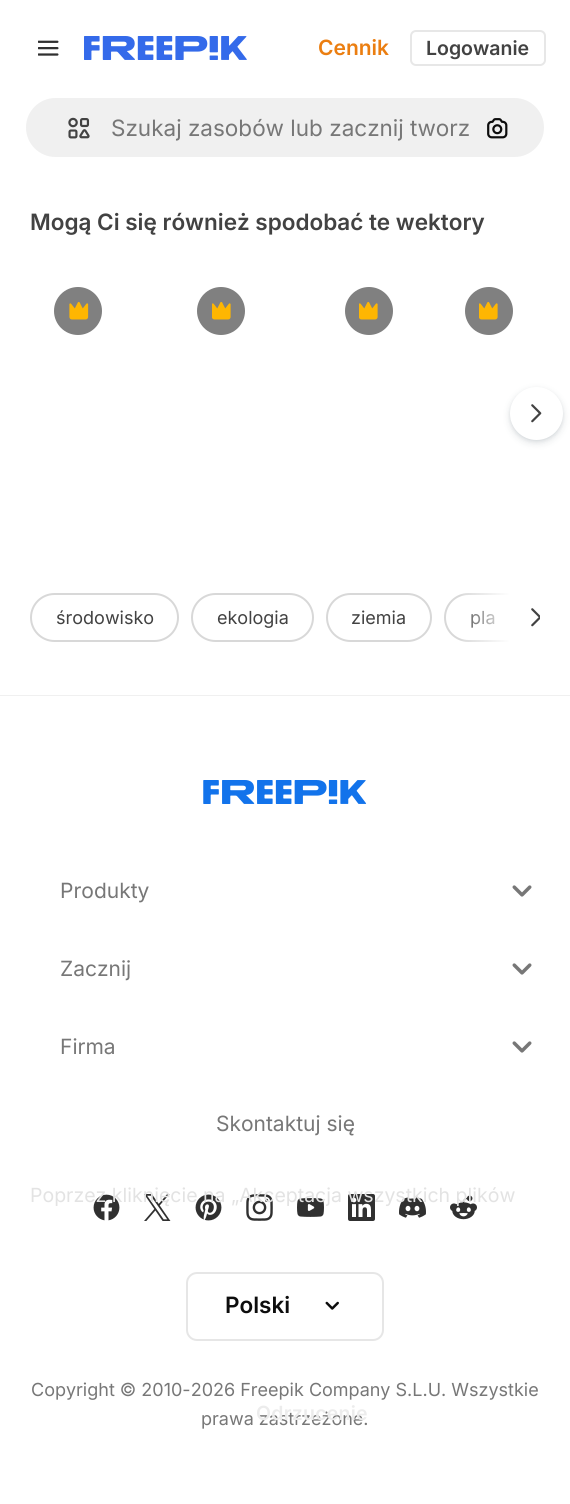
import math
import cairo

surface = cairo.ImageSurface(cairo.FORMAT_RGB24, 570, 1504)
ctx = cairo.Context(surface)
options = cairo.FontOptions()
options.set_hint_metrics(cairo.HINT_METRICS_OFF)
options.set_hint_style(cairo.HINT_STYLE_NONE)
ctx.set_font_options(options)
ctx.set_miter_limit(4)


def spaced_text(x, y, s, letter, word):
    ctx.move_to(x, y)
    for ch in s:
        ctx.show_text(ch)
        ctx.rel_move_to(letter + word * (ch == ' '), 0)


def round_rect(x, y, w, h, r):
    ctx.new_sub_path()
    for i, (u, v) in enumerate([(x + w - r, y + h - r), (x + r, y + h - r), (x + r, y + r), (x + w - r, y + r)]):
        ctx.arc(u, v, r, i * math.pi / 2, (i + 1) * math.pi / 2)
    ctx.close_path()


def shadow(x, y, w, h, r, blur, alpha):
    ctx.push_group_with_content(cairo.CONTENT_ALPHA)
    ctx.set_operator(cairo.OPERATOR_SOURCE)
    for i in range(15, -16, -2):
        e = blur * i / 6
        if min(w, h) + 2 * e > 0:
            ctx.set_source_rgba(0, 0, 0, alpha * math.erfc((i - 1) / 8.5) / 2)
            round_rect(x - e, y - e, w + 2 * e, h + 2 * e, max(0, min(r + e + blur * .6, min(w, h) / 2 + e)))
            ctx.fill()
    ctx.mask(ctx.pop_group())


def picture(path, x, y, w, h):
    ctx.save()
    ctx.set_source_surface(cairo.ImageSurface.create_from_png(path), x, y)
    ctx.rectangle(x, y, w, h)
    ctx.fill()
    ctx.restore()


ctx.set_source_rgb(1, 1, 1)
ctx.paint()
picture("img1.png", 38, 40, 21, 16)
picture("img2.png", 84, 36, 163, 24)
ctx.select_font_face("Inter SemiBold")
ctx.set_font_size(21)
ctx.set_source_rgb(0.918, 0.494, 0.067)
ctx.move_to(318, 55)
ctx.show_text("Cennik")
round_rect(411, 31, 134, 34, 5)
ctx.set_source_rgb(0.906, 0.906, 0.906)
ctx.stroke()
ctx.set_font_size(19.5)
ctx.set_source_rgb(0.259, 0.259, 0.259)
ctx.move_to(426, 55)
ctx.show_text("Logowanie")
ctx.set_source_rgb(0.941, 0.941, 0.941)
round_rect(25, 97, 520, 61, 30.5)
ctx.fill_preserve()
ctx.set_source_rgb(1, 1, 1)
ctx.stroke()
picture("img3.png", 68, 117, 22, 22)
ctx.select_font_face("Inter")
ctx.set_font_size(22.5)
ctx.set_source_rgb(0.467, 0.467, 0.467)
ctx.move_to(111, 136)
ctx.show_text("Szukaj zasobów lub zacznij tworz")
picture("img4.png", 487, 118, 21, 21)
ctx.select_font_face("Inter SemiBold")
ctx.set_source_rgb(0.259, 0.259, 0.259)
ctx.move_to(30, 230)
ctx.show_text("Mogą Ci się również spodobać te wektory")
ctx.set_source_rgb(0.502, 0.502, 0.502)
ctx.new_path()
ctx.arc(78, 311, 24, 0, 2 * math.pi)
ctx.fill()
picture("img5.png", 69, 302, 20, 18)
ctx.arc(221, 311, 24, 0, 2 * math.pi)
ctx.fill()
picture("img6.png", 212, 302, 19, 18)
ctx.arc(369, 311, 24, 0, 2 * math.pi)
ctx.fill()
picture("img6.png", 359, 302, 19, 18)
ctx.arc(489, 311, 24, 0, 2 * math.pi)
ctx.fill()
picture("img6.png", 479, 302, 19, 18)
ctx.set_source_rgb(0.216, 0.286, 0.341)
shadow(510, 390, 53, 53, 26.5, 4, 0.15)
shadow(510, 389, 53, 52, 26, 1.5, 0.1)
ctx.set_source_rgb(1, 1, 1)
ctx.arc(536.5, 413.5, 26.5, 0, 2 * math.pi)
ctx.fill()
picture("img7.png", 531, 404, 11, 19)
round_rect(31, 594, 147, 47, 23.5)
ctx.set_source_rgb(0.847, 0.847, 0.847)
ctx.stroke()
ctx.select_font_face("Inter")
ctx.set_font_size(18)
ctx.set_source_rgb(0.259, 0.259, 0.259)
ctx.move_to(56, 624)
ctx.show_text("środowisko")
round_rect(192, 594, 121, 47, 23.5)
ctx.set_source_rgb(0.847, 0.847, 0.847)
ctx.stroke()
ctx.set_source_rgb(0.259, 0.259, 0.259)
ctx.move_to(217, 624)
ctx.show_text("ekologia")
round_rect(327, 594, 104, 47, 23.5)
ctx.set_source_rgb(0.847, 0.847, 0.847)
ctx.stroke()
ctx.set_source_rgb(0.259, 0.259, 0.259)
ctx.move_to(351, 624)
ctx.show_text("ziemia")
ctx.save()
ctx.rectangle(30, 593, 510, 49)
ctx.clip()
round_rect(445, 594, 112, 47, 23.5)
ctx.set_source_rgb(0.847, 0.847, 0.847)
ctx.stroke()
ctx.restore()
ctx.move_to(470, 624)
ctx.show_text("pla")
ctx.set_source_rgb(1, 1, 1)
ctx.rectangle(510, 593, 30, 49)
ctx.fill()
gradient = cairo.LinearGradient(510, 617, 458, 617)
gradient.add_color_stop_rgba(0, 1, 1, 1, 1)
gradient.add_color_stop_rgba(1, 1, 1, 1, 0)
ctx.set_source(gradient)
ctx.rectangle(461, 593, 49, 49)
ctx.fill()
picture("img8.png", 531, 608, 9, 19)
ctx.set_source_rgb(0.941, 0.941, 0.941)
ctx.rectangle(0, 695, 570, 1)
ctx.fill()
picture("img9.png", 203, 780, 164, 24)
ctx.set_font_size(21)
ctx.set_source_rgb(0.467, 0.467, 0.467)
ctx.move_to(60, 898)
ctx.show_text("Produkty")
picture("img10.png", 512, 885, 20, 12)
ctx.move_to(60, 976)
ctx.show_text("Zacznij")
picture("img10.png", 512, 963, 20, 12)
ctx.move_to(60, 1054)
ctx.show_text("Firma")
picture("img10.png", 512, 1041, 20, 12)
ctx.move_to(216, 1131)
ctx.show_text("Skontaktuj się")
picture("img11.png", 93, 1194, 27, 27)
picture("img12.png", 144, 1194, 27, 27)
picture("img13.png", 195, 1194, 27, 27)
picture("img14.png", 246, 1194, 27, 27)
picture("img15.png", 297, 1198, 27, 19)
picture("img16.png", 348, 1194, 27, 27)
picture("img17.png", 399, 1197, 27, 21)
picture("img18.png", 450, 1195, 27, 25)
round_rect(187, 1273, 196, 67, 10)
ctx.set_source_rgb(0.902, 0.902, 0.902)
ctx.stroke()
ctx.select_font_face("Inter SemiBold")
ctx.set_font_size(22.5)
ctx.set_source_rgb(0.051, 0.051, 0.051)
ctx.move_to(225, 1313)
ctx.show_text("Polski")
picture("img19.png", 325, 1301, 14, 9)
ctx.select_font_face("Inter")
ctx.set_font_size(18)
ctx.set_source_rgb(0.467, 0.467, 0.467)
ctx.move_to(31, 1396)
ctx.show_text("Copyright © 2010-2026 Freepik Company S.L.U. Wszystkie")
ctx.move_to(201, 1425)
ctx.show_text("prawa zastrzeżone.")
ctx.set_font_size(19.5)
ctx.set_source_rgb(0.89, 0.89, 0.89)
ctx.move_to(30, 1202)
ctx.show_text("Poprzez kliknięcie na „Akceptacja wszystkich plików")
ctx.select_font_face("Inter SemiBold")
ctx.set_source_rgb(0.925, 0.925, 0.925)
spaced_text(256, 1420, "Odrzucenie", 0.25, 0)
surface.write_to_png("page.png")
